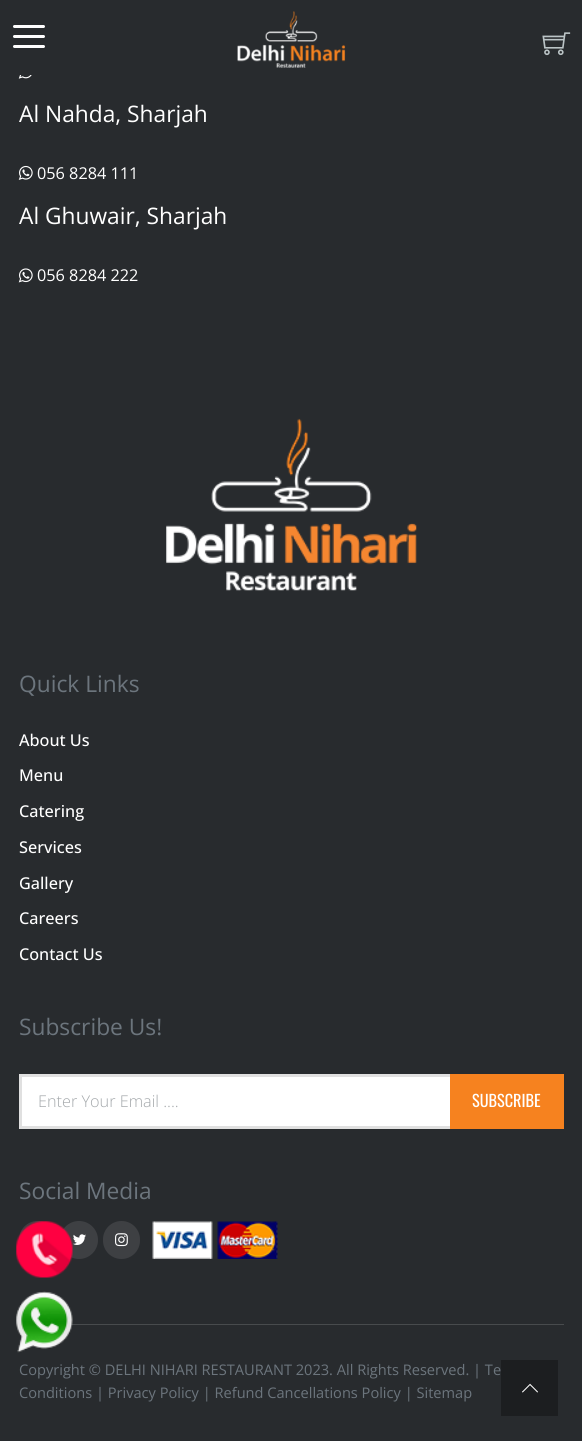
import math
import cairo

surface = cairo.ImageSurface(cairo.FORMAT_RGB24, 582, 1441)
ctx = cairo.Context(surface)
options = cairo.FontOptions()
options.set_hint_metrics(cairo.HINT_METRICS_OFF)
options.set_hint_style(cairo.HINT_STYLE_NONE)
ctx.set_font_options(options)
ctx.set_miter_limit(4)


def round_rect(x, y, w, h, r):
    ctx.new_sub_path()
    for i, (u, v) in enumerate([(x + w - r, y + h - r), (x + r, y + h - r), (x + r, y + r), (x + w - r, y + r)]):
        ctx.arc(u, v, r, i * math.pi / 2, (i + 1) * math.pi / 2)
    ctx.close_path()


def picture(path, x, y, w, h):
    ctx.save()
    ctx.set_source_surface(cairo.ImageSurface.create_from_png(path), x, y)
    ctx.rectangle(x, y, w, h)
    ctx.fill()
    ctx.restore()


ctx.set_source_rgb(0.157, 0.169, 0.18)
ctx.paint()
ctx.set_source_rgb(1, 1, 1)
round_rect(13, 25, 32, 3, 1.5)
ctx.fill()
round_rect(13, 35, 32, 3, 1.5)
ctx.fill()
round_rect(13, 45, 32, 3, 1.5)
ctx.fill()
picture("img1.png", 237, 11, 109, 57)
picture("img2.png", 542, 32, 29, 24)
picture("img3.png", 18, 75, 14, 4)
ctx.select_font_face("Open Sans")
ctx.set_font_size(22.75)
ctx.move_to(19, 122)
ctx.show_text("Al Nahda, Sharjah")
picture("img4.png", 18, 165, 15, 15)
ctx.set_font_size(16.25)
ctx.move_to(37, 179)
ctx.show_text("056 8284 111")
ctx.set_font_size(22.75)
ctx.move_to(19, 224)
ctx.show_text("Al Ghuwair, Sharjah")
picture("img5.png", 18, 268, 15, 15)
ctx.set_font_size(16.25)
ctx.move_to(37, 281)
ctx.show_text("056 8284 222")
picture("img6.png", 166, 418, 251, 173)
ctx.set_font_size(22.75)
ctx.set_source_rgb(0.424, 0.459, 0.49)
ctx.move_to(19, 692)
ctx.show_text("Quick Links")
ctx.select_font_face("Open Sans Medium")
ctx.set_font_size(16.25)
ctx.set_source_rgb(1, 1, 1)
ctx.move_to(19, 746)
ctx.show_text("About Us")
ctx.move_to(19, 781)
ctx.show_text("Menu")
ctx.move_to(19, 817)
ctx.show_text("Catering")
ctx.move_to(19, 853)
ctx.show_text("Services")
ctx.move_to(19, 889)
ctx.show_text("Gallery")
ctx.move_to(19, 924)
ctx.show_text("Careers")
ctx.move_to(19, 960)
ctx.show_text("Contact Us")
ctx.select_font_face("Open Sans")
ctx.set_font_size(22.75)
ctx.set_source_rgb(0.424, 0.459, 0.49)
ctx.move_to(19, 1035)
ctx.show_text("Subscribe Us!")
ctx.set_source_rgb(1, 1, 1)
ctx.rectangle(20.5, 1075.5, 431, 52)
ctx.fill_preserve()
ctx.set_source_rgb(0.878, 0.878, 0.878)
ctx.set_line_width(3)
ctx.stroke()
ctx.select_font_face("Open Sans Light")
ctx.set_font_size(16.25)
ctx.set_source_rgb(0.643, 0.659, 0.671)
ctx.move_to(38, 1107)
ctx.show_text("Enter Your Email ....")
ctx.set_source_rgb(0.961, 0.51, 0.122)
ctx.rectangle(450, 1074, 114, 55)
ctx.fill()
ctx.select_font_face("Oswald")
ctx.set_source_rgb(1, 1, 1)
ctx.move_to(472, 1107)
ctx.show_text("SUBSCRIBE")
ctx.select_font_face("Open Sans")
ctx.set_font_size(22.75)
ctx.set_source_rgb(0.424, 0.459, 0.49)
ctx.move_to(19, 1199)
ctx.show_text("Social Media")
ctx.set_source_rgb(0.243, 0.251, 0.263)
round_rect(19, 1221, 37, 38, 18.5)
ctx.fill()
ctx.arc(79, 1240, 19, 0, 2 * math.pi)
ctx.fill()
picture("img7.png", 73, 1234, 13, 11)
round_rect(103, 1221, 37, 38, 18.5)
ctx.fill()
picture("img8.png", 115, 1233, 13, 14)
picture("img9.png", 152, 1221, 126, 38)
ctx.set_source_rgb(0.282, 0.294, 0.302)
ctx.rectangle(71, 1324, 493, 1)
ctx.fill()
ctx.set_font_size(14.6)
ctx.set_source_rgb(0.424, 0.459, 0.49)
ctx.move_to(19, 1375)
ctx.show_text("Copyright © DELHI NIHARI RESTAURANT 2023. All Rights Reserved. | Te")
ctx.move_to(19, 1398)
ctx.show_text("Conditions | Privacy Policy | Refund Cancellations Policy | Sitemap")
ctx.set_source_rgb(0.11, 0.118, 0.125)
ctx.rectangle(501, 1360, 57, 56)
ctx.fill()
picture("img10.png", 522, 1383, 16, 10)
picture("img11.png", 16, 1221, 57, 57)
picture("img12.png", 16, 1291, 57, 62)
surface.write_to_png("page.png")
